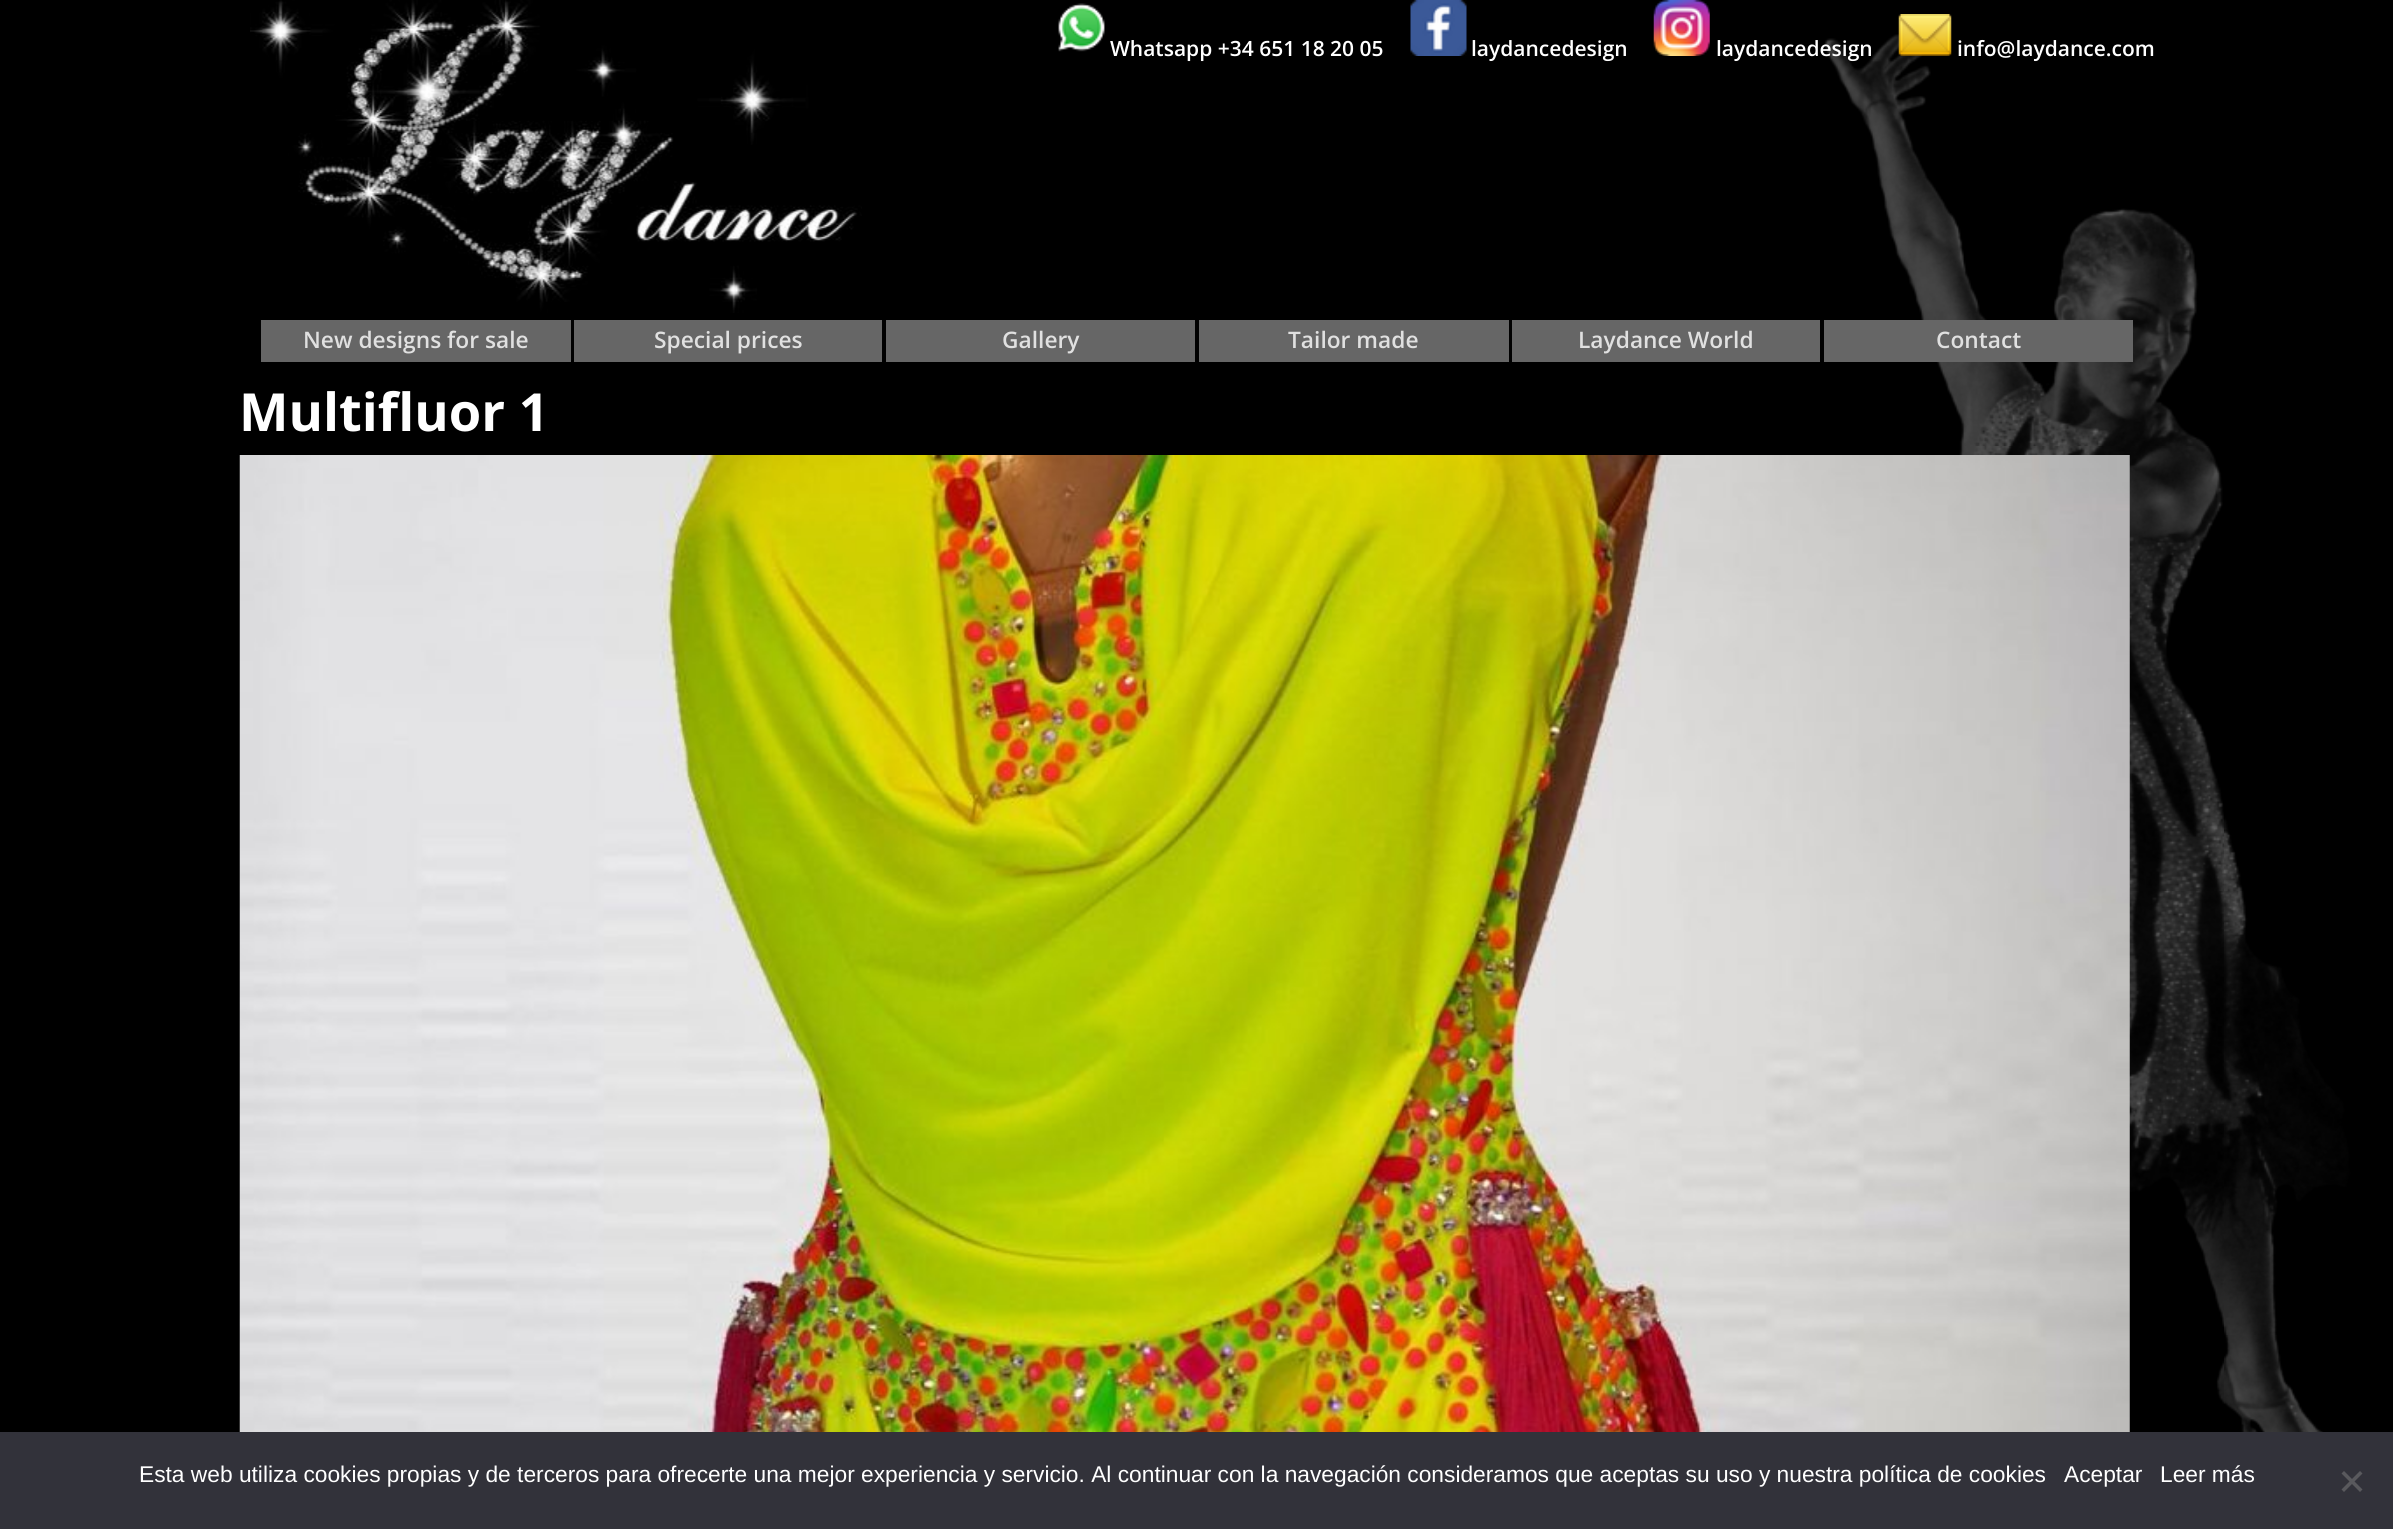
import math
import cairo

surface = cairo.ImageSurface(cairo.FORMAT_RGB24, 2393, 1529)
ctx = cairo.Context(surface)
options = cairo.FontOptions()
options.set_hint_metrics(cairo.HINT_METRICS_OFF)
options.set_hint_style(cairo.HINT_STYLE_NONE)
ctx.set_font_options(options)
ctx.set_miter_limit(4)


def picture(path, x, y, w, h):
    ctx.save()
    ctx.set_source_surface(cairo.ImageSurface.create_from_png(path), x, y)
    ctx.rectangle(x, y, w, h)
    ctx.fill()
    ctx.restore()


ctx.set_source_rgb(0, 0, 0)
ctx.paint()
picture("img1.png", 1693, 34, 660, 1398)
picture("img2.png", 1058, 3, 47, 49)
ctx.select_font_face("Open Sans SemiBold")
ctx.set_font_size(21)
ctx.set_source_rgb(1, 1, 1)
ctx.move_to(1110, 56)
ctx.show_text("Whatsapp +34 651 18 20 05")
picture("img3.png", 1410, 0, 57, 56)
ctx.move_to(1471, 56)
ctx.show_text("laydancedesign")
picture("img4.png", 1653, 0, 57, 56)
ctx.move_to(1716, 56)
ctx.show_text("laydancedesign")
picture("img5.png", 1898, 14, 54, 42)
ctx.move_to(1957, 56)
ctx.show_text("info@laydance.com")
picture("img6.png", 250, 0, 612, 313)
ctx.set_source_rgb(0.4, 0.4, 0.4)
ctx.rectangle(261, 320, 310, 42)
ctx.fill()
ctx.set_font_size(22.75)
ctx.set_source_rgb(0.878, 0.878, 0.878)
ctx.move_to(303, 348)
ctx.show_text("New designs for sale")
ctx.set_source_rgb(0.4, 0.4, 0.4)
ctx.rectangle(574, 320, 308, 42)
ctx.fill()
ctx.set_source_rgb(0.878, 0.878, 0.878)
ctx.move_to(654, 348)
ctx.show_text("Special prices")
ctx.set_source_rgb(0.4, 0.4, 0.4)
ctx.rectangle(886, 320, 309, 42)
ctx.fill()
ctx.set_source_rgb(0.878, 0.878, 0.878)
ctx.move_to(1002, 348)
ctx.show_text("Gallery")
ctx.set_source_rgb(0.4, 0.4, 0.4)
ctx.rectangle(1199, 320, 310, 42)
ctx.fill()
ctx.set_source_rgb(0.878, 0.878, 0.878)
ctx.move_to(1288, 348)
ctx.show_text("Tailor made")
ctx.set_source_rgb(0.4, 0.4, 0.4)
ctx.rectangle(1512, 320, 308, 42)
ctx.fill()
ctx.set_source_rgb(0.878, 0.878, 0.878)
ctx.move_to(1578, 348)
ctx.show_text("Laydance World")
ctx.set_source_rgb(0.4, 0.4, 0.4)
ctx.rectangle(1824, 320, 309, 42)
ctx.fill()
ctx.set_source_rgb(0.878, 0.878, 0.878)
ctx.move_to(1936, 348)
ctx.show_text("Contact")
ctx.select_font_face("Open Sans", cairo.FONT_SLANT_NORMAL, cairo.FONT_WEIGHT_BOLD)
ctx.set_font_size(52.5)
ctx.set_source_rgb(1, 1, 1)
ctx.move_to(239, 431)
ctx.show_text("Multifluor 1")
picture("img7.png", 239, 455, 1891, 977)
ctx.set_source_rgb(0.196, 0.196, 0.227)
ctx.rectangle(0, 1432, 2393, 97)
ctx.fill()
ctx.select_font_face("Liberation Sans")
ctx.set_font_size(22.75)
ctx.set_source_rgb(1, 1, 1)
ctx.move_to(139, 1482)
ctx.show_text("Esta web utiliza cookies propias y de terceros para ofrecerte una mejor experiencia y servicio. Al continuar con la navegación consideramos que aceptas su uso y nuestra política de cookies")
ctx.move_to(2064, 1482)
ctx.show_text("Aceptar")
ctx.move_to(2160, 1482)
ctx.show_text("Leer más")
ctx.set_source_rgb(0.349, 0.349, 0.365)
ctx.new_path()
ctx.move_to(2360, 1471)
ctx.line_to(2362.5, 1473.5)
ctx.line_to(2344, 1492)
ctx.line_to(2341.5, 1489.5)
ctx.close_path()
ctx.fill()
ctx.new_path()
ctx.move_to(2341.5, 1473.5)
ctx.line_to(2344, 1471)
ctx.line_to(2362.5, 1489.5)
ctx.line_to(2360, 1492)
ctx.close_path()
ctx.fill()
surface.write_to_png("page.png")
